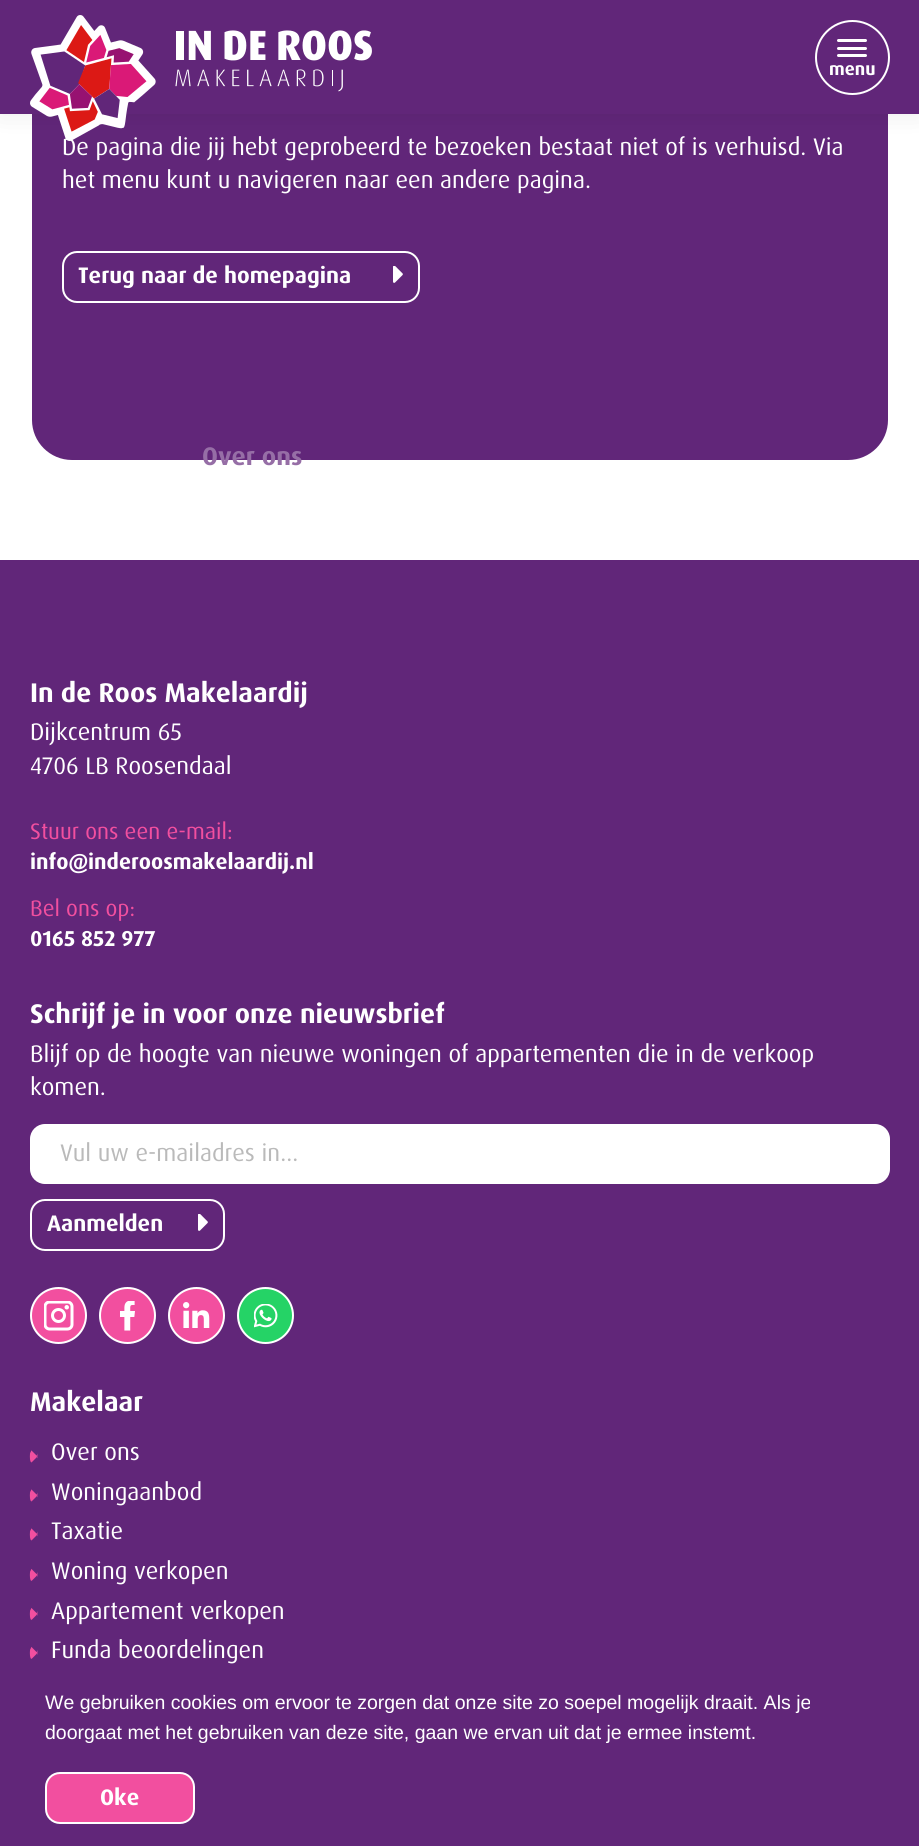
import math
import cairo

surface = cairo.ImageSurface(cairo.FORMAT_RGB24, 919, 1846)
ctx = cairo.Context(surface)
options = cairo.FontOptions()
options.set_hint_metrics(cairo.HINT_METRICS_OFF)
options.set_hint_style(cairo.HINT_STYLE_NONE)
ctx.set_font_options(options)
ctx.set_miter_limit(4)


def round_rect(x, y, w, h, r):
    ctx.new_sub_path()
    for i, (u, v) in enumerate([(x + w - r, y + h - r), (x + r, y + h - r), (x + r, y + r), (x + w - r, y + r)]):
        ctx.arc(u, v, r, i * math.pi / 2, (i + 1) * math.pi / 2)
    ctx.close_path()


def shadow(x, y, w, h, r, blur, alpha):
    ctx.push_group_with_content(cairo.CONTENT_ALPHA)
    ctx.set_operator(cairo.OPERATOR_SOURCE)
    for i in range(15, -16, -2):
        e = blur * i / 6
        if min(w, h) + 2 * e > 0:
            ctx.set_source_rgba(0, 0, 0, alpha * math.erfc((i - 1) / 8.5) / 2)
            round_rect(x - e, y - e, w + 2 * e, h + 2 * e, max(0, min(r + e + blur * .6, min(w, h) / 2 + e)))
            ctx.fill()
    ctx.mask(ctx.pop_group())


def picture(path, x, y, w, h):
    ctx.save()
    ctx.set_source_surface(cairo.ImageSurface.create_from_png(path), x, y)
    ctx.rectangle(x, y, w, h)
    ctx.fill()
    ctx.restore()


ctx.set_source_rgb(1, 1, 1)
ctx.paint()
ctx.set_source_rgb(0.38, 0.149, 0.475)
round_rect(31, -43, 858, 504, 41)
ctx.fill_preserve()
ctx.set_source_rgb(1, 1, 1)
ctx.stroke()
ctx.set_source_rgb(0, 0, 0)
shadow(0, 0, 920, 114, 0, 13, 0.08)
ctx.set_source_rgb(0.38, 0.149, 0.475)
ctx.rectangle(0, 0, 919, 114)
ctx.fill()
ctx.select_font_face("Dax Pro")
ctx.set_font_size(24)
ctx.set_source_rgb(1, 1, 1)
ctx.move_to(62, 155)
ctx.show_text("De pagina die jij hebt geprobeerd te bezoeken bestaat niet of is verhuisd. Via")
picture("img1.png", 30, 15, 342, 126)
ctx.arc(852.5, 57.5, 36.5, 0, 2 * math.pi)
ctx.stroke()
round_rect(837, 39, 30, 3, 1.5)
ctx.fill()
round_rect(837, 47, 30, 3, 1.5)
ctx.fill()
round_rect(837, 54, 30, 3, 1.5)
ctx.fill()
ctx.select_font_face("Dax Pro", cairo.FONT_SLANT_NORMAL, cairo.FONT_WEIGHT_BOLD)
ctx.set_font_size(18)
ctx.move_to(829, 75)
ctx.show_text("menu")
ctx.set_font_size(25.5)
ctx.set_source_rgb(0.588, 0.431, 0.651)
ctx.move_to(202, 465)
ctx.show_text("Over ons")
ctx.select_font_face("Dax Pro")
ctx.set_font_size(24)
ctx.set_source_rgb(1, 1, 1)
ctx.move_to(62, 188)
ctx.show_text("het menu kunt u navigeren naar een andere pagina.")
round_rect(63, 252, 356, 50, 14)
ctx.stroke()
ctx.select_font_face("Dax Pro", cairo.FONT_SLANT_NORMAL, cairo.FONT_WEIGHT_BOLD)
ctx.set_font_size(22.5)
ctx.move_to(78, 283)
ctx.show_text("Terug naar de homepagina")
picture("img2.png", 393, 266, 10, 17)
ctx.set_source_rgb(0.38, 0.149, 0.475)
ctx.rectangle(0, 560, 919, 1286)
ctx.fill()
ctx.set_font_size(27)
ctx.set_source_rgb(1, 1, 1)
ctx.move_to(30, 702)
ctx.show_text("In de Roos Makelaardij")
ctx.select_font_face("Dax Pro")
ctx.set_font_size(24)
ctx.move_to(30, 740)
ctx.show_text("Dijkcentrum 65")
ctx.move_to(30, 774)
ctx.show_text("4706 LB Roosendaal")
ctx.set_font_size(22.5)
ctx.set_source_rgb(0.949, 0.31, 0.624)
ctx.move_to(30, 839)
ctx.show_text("Stuur ons een e-mail:")
ctx.select_font_face("Dax Pro", cairo.FONT_SLANT_NORMAL, cairo.FONT_WEIGHT_BOLD)
ctx.set_font_size(21.6)
ctx.set_source_rgb(1, 1, 1)
ctx.move_to(30, 869)
ctx.show_text("info@inderoosmakelaardij.nl")
ctx.select_font_face("Dax Pro")
ctx.set_font_size(22.5)
ctx.set_source_rgb(0.949, 0.31, 0.624)
ctx.move_to(30, 916)
ctx.show_text("Bel ons op:")
ctx.select_font_face("Dax Pro", cairo.FONT_SLANT_NORMAL, cairo.FONT_WEIGHT_BOLD)
ctx.set_font_size(21.6)
ctx.set_source_rgb(1, 1, 1)
ctx.move_to(30, 946)
ctx.show_text("0165 852 977")
ctx.set_font_size(27)
ctx.move_to(30, 1023)
ctx.show_text("Schrijf je in voor onze nieuwsbrief")
ctx.select_font_face("Dax Pro")
ctx.set_font_size(24)
ctx.move_to(30, 1062)
ctx.show_text("Blijf op de hoogte van nieuwe woningen of appartementen die in de verkoop")
ctx.move_to(30, 1095)
ctx.show_text("komen.")
round_rect(30, 1124, 860, 60, 15)
ctx.fill()
ctx.set_source_rgb(0.729, 0.729, 0.729)
ctx.move_to(60, 1161)
ctx.show_text("Vul uw e-mailadres in...")
round_rect(31, 1200, 193, 50, 14)
ctx.set_source_rgb(1, 1, 1)
ctx.stroke()
ctx.select_font_face("Dax Pro", cairo.FONT_SLANT_NORMAL, cairo.FONT_WEIGHT_BOLD)
ctx.set_font_size(22.5)
ctx.move_to(47, 1231)
ctx.show_text("Aanmelden")
picture("img3.png", 198, 1214, 10, 17)
ctx.set_source_rgb(0.949, 0.31, 0.624)
ctx.arc(58.5, 1315.5, 27.5, 0, 2 * math.pi)
ctx.fill_preserve()
ctx.set_source_rgb(1, 1, 1)
ctx.stroke()
picture("img4.png", 44, 1301, 30, 30)
ctx.set_source_rgb(0.949, 0.31, 0.624)
ctx.arc(127.5, 1315.5, 27.5, 0, 2 * math.pi)
ctx.fill_preserve()
ctx.set_source_rgb(1, 1, 1)
ctx.stroke()
picture("img5.png", 120, 1301, 15, 30)
ctx.set_source_rgb(0.949, 0.31, 0.624)
ctx.arc(196.5, 1315.5, 27.5, 0, 2 * math.pi)
ctx.fill_preserve()
ctx.set_source_rgb(1, 1, 1)
ctx.stroke()
picture("img6.png", 183, 1302, 27, 26)
ctx.set_source_rgb(0.145, 0.827, 0.4)
ctx.arc(265.5, 1315.5, 27.5, 0, 2 * math.pi)
ctx.fill_preserve()
ctx.set_source_rgb(1, 1, 1)
ctx.stroke()
picture("img7.png", 254, 1304, 24, 24)
ctx.set_font_size(27)
ctx.move_to(30, 1411)
ctx.show_text("Makelaar")
ctx.new_path()
ctx.move_to(34, 1460)
ctx.curve_to(33.5, 1459.5, 33.5, 1453.5, 34, 1453)
ctx.set_source_rgb(0.949, 0.31, 0.624)
ctx.set_line_width(7.5)
ctx.stroke()
ctx.select_font_face("Dax Pro")
ctx.set_font_size(24)
ctx.set_source_rgb(1, 1, 1)
ctx.move_to(51, 1460)
ctx.show_text("Over ons")
ctx.new_path()
ctx.move_to(34, 1499)
ctx.curve_to(33.5, 1498.5, 33.5, 1492.5, 34, 1492)
ctx.set_source_rgb(0.949, 0.31, 0.624)
ctx.stroke()
ctx.set_source_rgb(1, 1, 1)
ctx.move_to(51, 1500)
ctx.show_text("Woningaanbod")
ctx.new_path()
ctx.move_to(34, 1538)
ctx.curve_to(33.5, 1537.5, 33.5, 1531.5, 34, 1531)
ctx.set_source_rgb(0.949, 0.31, 0.624)
ctx.stroke()
ctx.set_source_rgb(1, 1, 1)
ctx.move_to(51, 1539)
ctx.show_text("Taxatie")
ctx.new_path()
ctx.move_to(34, 1578.5)
ctx.curve_to(33.5, 1578, 33.5, 1572, 34, 1571.5)
ctx.set_source_rgb(0.949, 0.31, 0.624)
ctx.stroke()
ctx.set_source_rgb(1, 1, 1)
ctx.move_to(51, 1579)
ctx.show_text("Woning verkopen")
ctx.new_path()
ctx.move_to(34, 1617.5)
ctx.curve_to(33.5, 1617, 33.5, 1611, 34, 1610.5)
ctx.set_source_rgb(0.949, 0.31, 0.624)
ctx.stroke()
ctx.set_source_rgb(1, 1, 1)
ctx.move_to(51, 1619)
ctx.show_text("Appartement verkopen")
ctx.new_path()
ctx.move_to(34, 1656.5)
ctx.curve_to(33.5, 1656, 33.5, 1650, 34, 1649.5)
ctx.set_source_rgb(0.949, 0.31, 0.624)
ctx.stroke()
ctx.set_source_rgb(1, 1, 1)
ctx.move_to(51, 1658)
ctx.show_text("Funda beoordelingen")
ctx.select_font_face("Liberation Sans")
ctx.set_font_size(19.5)
ctx.move_to(45, 1709)
ctx.show_text("We gebruiken cookies om ervoor te zorgen dat onze site zo soepel mogelijk draait. Als je")
ctx.move_to(45, 1739)
ctx.show_text("doorgaat met het gebruiken van deze site, gaan we ervan uit dat je ermee instemt.")
ctx.set_source_rgb(0.949, 0.31, 0.624)
round_rect(46, 1773, 148, 50, 14)
ctx.fill_preserve()
ctx.set_source_rgb(1, 1, 1)
ctx.set_line_width(2)
ctx.stroke()
ctx.select_font_face("Dax Pro", cairo.FONT_SLANT_NORMAL, cairo.FONT_WEIGHT_BOLD)
ctx.set_font_size(22.5)
ctx.move_to(100, 1805)
ctx.show_text("Oke")
surface.write_to_png("page.png")
